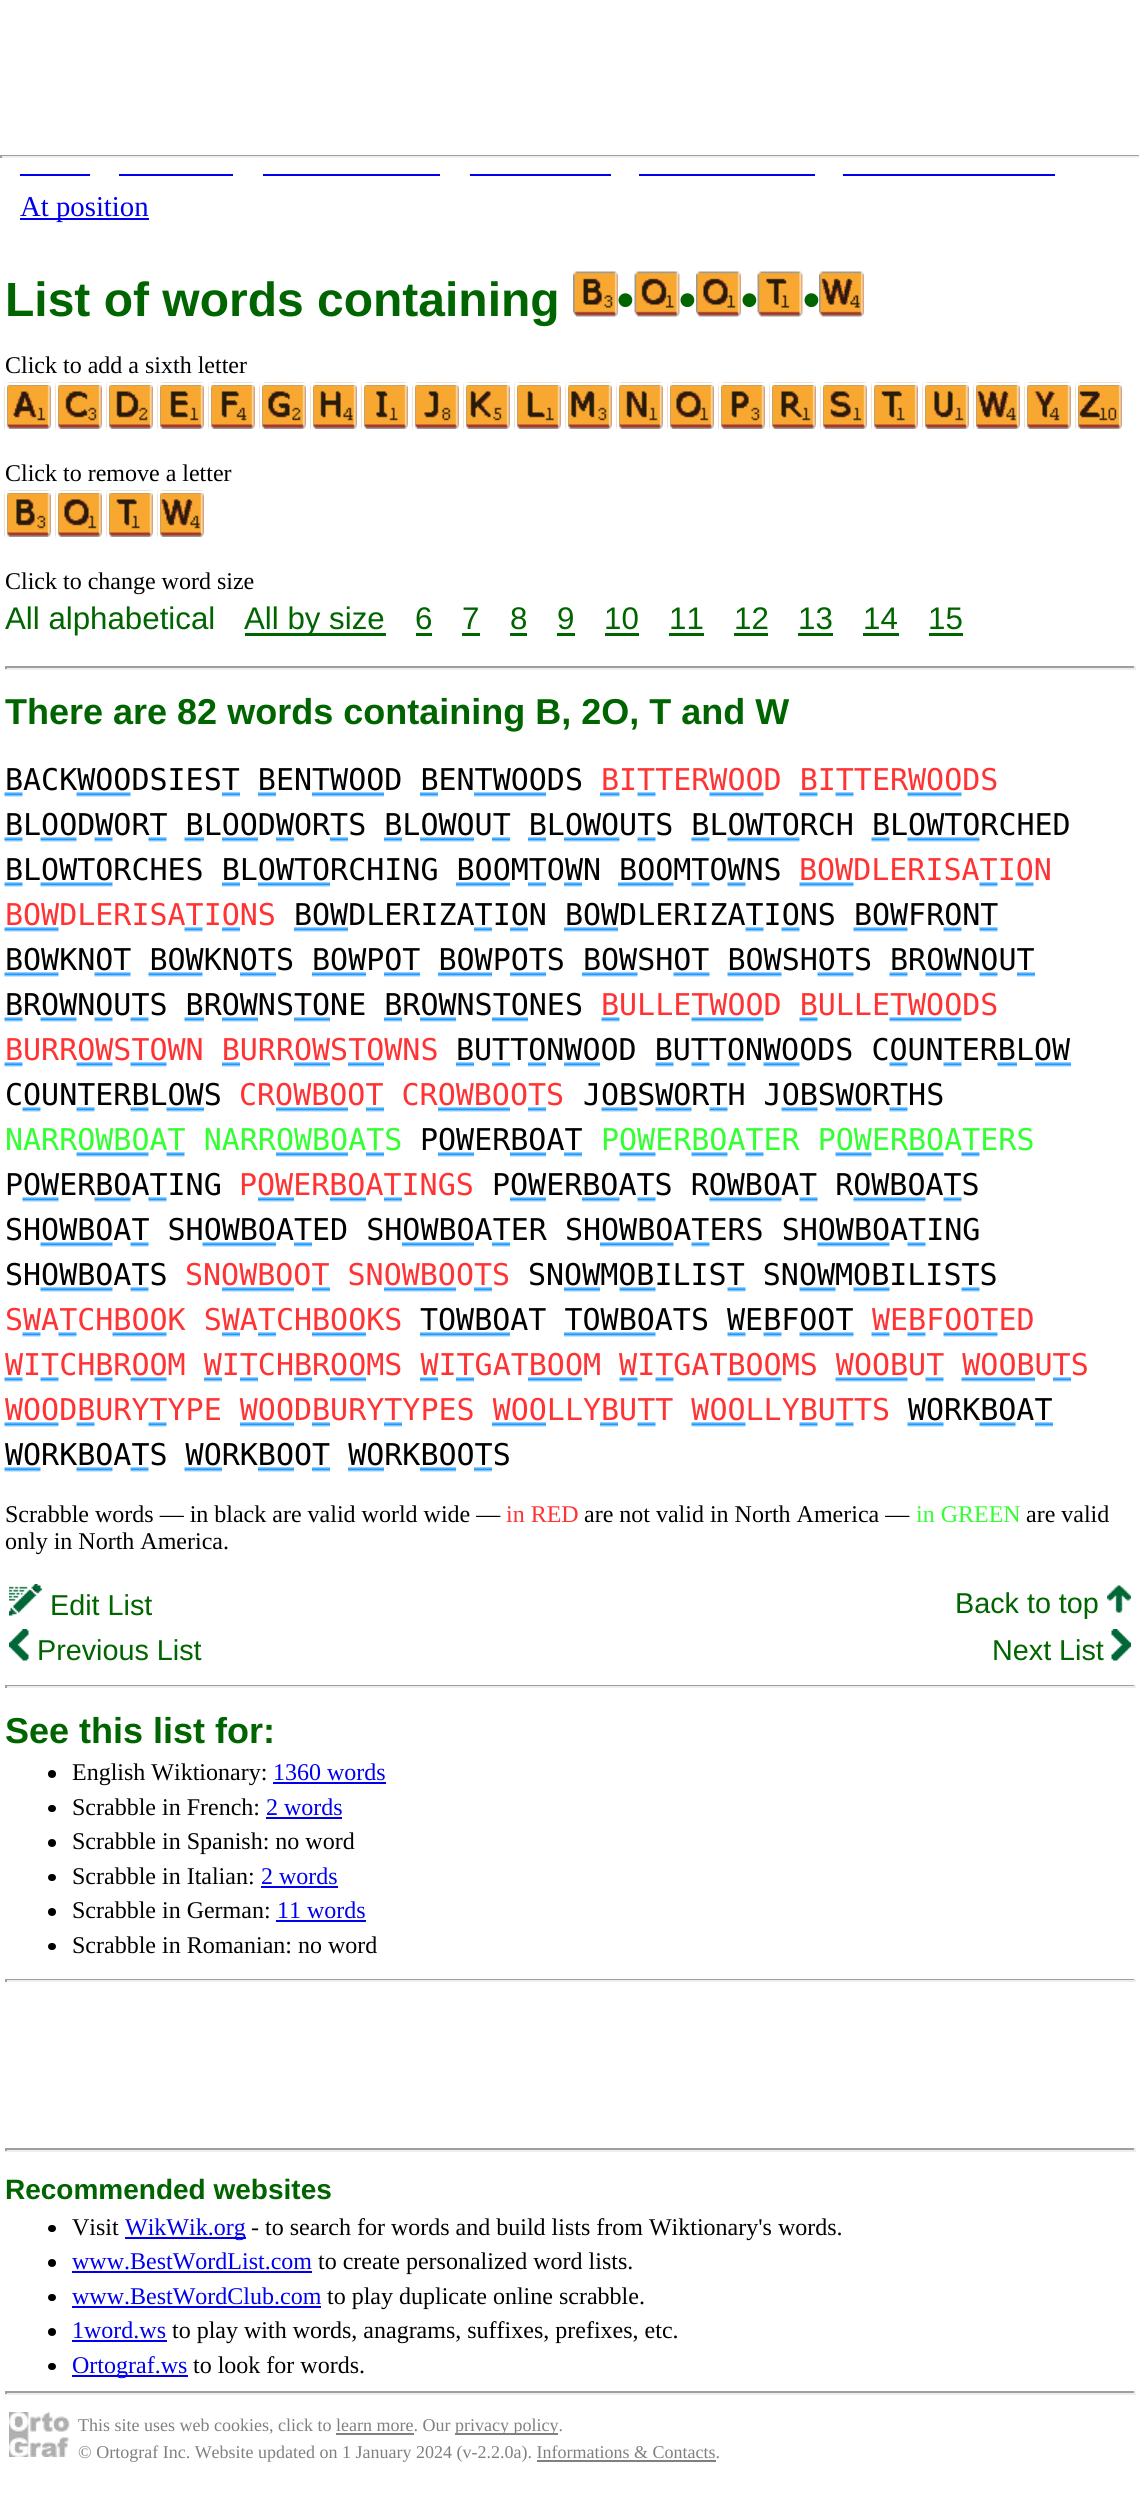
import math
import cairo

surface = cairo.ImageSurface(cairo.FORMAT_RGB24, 1139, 2494)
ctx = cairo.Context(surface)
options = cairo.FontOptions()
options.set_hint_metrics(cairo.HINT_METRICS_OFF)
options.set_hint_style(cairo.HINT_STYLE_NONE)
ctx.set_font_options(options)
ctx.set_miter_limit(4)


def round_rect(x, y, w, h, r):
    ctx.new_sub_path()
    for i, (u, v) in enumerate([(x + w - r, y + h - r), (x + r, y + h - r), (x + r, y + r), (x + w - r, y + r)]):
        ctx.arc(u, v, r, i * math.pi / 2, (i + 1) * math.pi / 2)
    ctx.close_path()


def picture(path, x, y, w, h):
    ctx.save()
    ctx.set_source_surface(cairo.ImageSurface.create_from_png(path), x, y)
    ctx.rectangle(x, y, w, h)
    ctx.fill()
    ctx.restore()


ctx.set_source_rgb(1, 1, 1)
ctx.paint()
ctx.set_source_rgb(0.624, 0.624, 0.624)
ctx.rectangle(0, 155, 1139, 1)
ctx.fill()
ctx.set_source_rgb(0.933, 0.933, 0.933)
ctx.rectangle(0, 156, 1139, 2)
ctx.fill()
ctx.set_source_rgb(0.624, 0.624, 0.624)
ctx.rectangle(0, 155, 2, 3)
ctx.fill()
ctx.set_source_rgb(0, 0, 0.933)
ctx.rectangle(20, 174, 70, 2)
ctx.fill()
ctx.rectangle(119, 174, 114, 2)
ctx.fill()
ctx.rectangle(263, 174, 177, 2)
ctx.fill()
ctx.rectangle(470, 174, 141, 2)
ctx.fill()
ctx.rectangle(639, 174, 176, 2)
ctx.fill()
ctx.rectangle(843, 174, 212, 2)
ctx.fill()
ctx.rectangle(20, 218, 129, 2)
ctx.fill()
ctx.select_font_face("Liberation Serif")
ctx.set_font_size(28.75)
ctx.move_to(20, 216)
ctx.show_text("At position")
ctx.select_font_face("Liberation Sans", cairo.FONT_SLANT_NORMAL, cairo.FONT_WEIGHT_BOLD)
ctx.set_font_size(48)
ctx.set_source_rgb(0, 0.392, 0)
ctx.move_to(5, 316)
ctx.show_text("List of words containing")
picture("img1.png", 573, 271, 45, 46)
ctx.move_to(617, 316)
ctx.show_text("•")
picture("img2.png", 634, 271, 46, 46)
ctx.move_to(679, 316)
ctx.show_text("•")
picture("img3.png", 696, 271, 45, 46)
ctx.move_to(741, 316)
ctx.show_text("•")
picture("img4.png", 757, 271, 46, 46)
ctx.move_to(803, 316)
ctx.show_text("•")
picture("img5.png", 819, 271, 45, 46)
ctx.select_font_face("Liberation Serif")
ctx.set_font_size(24)
ctx.set_source_rgb(0, 0, 0)
ctx.move_to(5, 373)
ctx.show_text("Click to add a sixth letter")
picture("img6.png", 4, 382, 49, 49)
ctx.rectangle(6, 384, 46, 46)
ctx.set_source_rgb(1, 1, 1)
ctx.stroke()
picture("img7.png", 55, 382, 49, 49)
ctx.rectangle(57, 384, 46, 46)
ctx.stroke()
picture("img8.png", 106, 382, 49, 49)
ctx.rectangle(108, 384, 46, 46)
ctx.stroke()
picture("img9.png", 157, 382, 49, 49)
ctx.rectangle(159, 384, 46, 46)
ctx.stroke()
picture("img10.png", 208, 382, 49, 49)
ctx.rectangle(210, 384, 46, 46)
ctx.stroke()
picture("img11.png", 259, 382, 49, 49)
ctx.rectangle(261, 384, 46, 46)
ctx.stroke()
picture("img12.png", 310, 382, 49, 49)
ctx.rectangle(312, 384, 46, 46)
ctx.stroke()
picture("img13.png", 361, 382, 49, 49)
ctx.rectangle(363, 384, 46, 46)
ctx.stroke()
picture("img14.png", 412, 382, 49, 49)
ctx.rectangle(414, 384, 46, 46)
ctx.stroke()
picture("img15.png", 463, 382, 49, 49)
ctx.rectangle(465, 384, 46, 46)
ctx.stroke()
picture("img16.png", 514, 382, 49, 49)
ctx.rectangle(516, 384, 46, 46)
ctx.stroke()
picture("img17.png", 565, 382, 49, 49)
ctx.rectangle(567, 384, 46, 46)
ctx.stroke()
picture("img18.png", 616, 382, 49, 49)
ctx.rectangle(618, 384, 46, 46)
ctx.stroke()
picture("img19.png", 667, 382, 49, 49)
ctx.rectangle(669, 384, 46, 46)
ctx.stroke()
picture("img20.png", 718, 382, 49, 49)
ctx.rectangle(720, 384, 46, 46)
ctx.stroke()
picture("img21.png", 769, 382, 49, 49)
ctx.rectangle(771, 384, 46, 46)
ctx.stroke()
picture("img22.png", 820, 382, 49, 49)
ctx.rectangle(822, 384, 46, 46)
ctx.stroke()
picture("img23.png", 871, 382, 49, 49)
ctx.rectangle(873, 384, 46, 46)
ctx.stroke()
picture("img24.png", 922, 382, 49, 49)
ctx.rectangle(924, 384, 46, 46)
ctx.stroke()
picture("img25.png", 973, 382, 49, 49)
ctx.rectangle(975, 384, 46, 46)
ctx.stroke()
picture("img26.png", 1024, 382, 49, 49)
ctx.rectangle(1026, 384, 46, 46)
ctx.stroke()
picture("img27.png", 1075, 382, 49, 49)
ctx.rectangle(1077, 384, 46, 46)
ctx.stroke()
ctx.set_source_rgb(0, 0, 0)
ctx.move_to(5, 481)
ctx.show_text("Click to remove a letter")
picture("img28.png", 4, 490, 49, 49)
ctx.rectangle(6, 492, 46, 46)
ctx.set_source_rgb(1, 1, 1)
ctx.stroke()
picture("img29.png", 55, 490, 49, 49)
ctx.rectangle(57, 492, 46, 46)
ctx.stroke()
picture("img23.png", 106, 490, 49, 49)
ctx.rectangle(108, 492, 46, 46)
ctx.stroke()
picture("img30.png", 157, 490, 49, 49)
ctx.rectangle(159, 492, 46, 46)
ctx.stroke()
ctx.set_source_rgb(0, 0, 0)
ctx.move_to(5, 589)
ctx.show_text("Click to change word size")
ctx.select_font_face("Liberation Sans")
ctx.set_font_size(31.25)
ctx.set_source_rgb(0, 0.392, 0)
ctx.move_to(5, 629)
ctx.show_text("All alphabetical")
ctx.rectangle(245, 633, 141, 3)
ctx.fill()
ctx.move_to(244, 629)
ctx.show_text("All by size")
ctx.move_to(415, 629)
ctx.show_text("6")
ctx.rectangle(416, 633, 16, 3)
ctx.fill()
ctx.move_to(462, 629)
ctx.show_text("7")
ctx.rectangle(462, 633, 18, 3)
ctx.fill()
ctx.move_to(510, 629)
ctx.show_text("8")
ctx.rectangle(510, 633, 17, 3)
ctx.fill()
ctx.move_to(557, 629)
ctx.show_text("9")
ctx.rectangle(557, 633, 18, 3)
ctx.fill()
ctx.move_to(604, 629)
ctx.show_text("10")
ctx.rectangle(605, 633, 34, 3)
ctx.fill()
ctx.move_to(669, 629)
ctx.show_text("11")
ctx.rectangle(669, 633, 35, 3)
ctx.fill()
ctx.move_to(734, 629)
ctx.show_text("12")
ctx.rectangle(734, 633, 34, 3)
ctx.fill()
ctx.move_to(798, 629)
ctx.show_text("13")
ctx.rectangle(798, 633, 35, 3)
ctx.fill()
ctx.move_to(863, 629)
ctx.show_text("14")
ctx.rectangle(863, 633, 36, 3)
ctx.fill()
ctx.move_to(928, 629)
ctx.show_text("15")
ctx.rectangle(929, 633, 34, 3)
ctx.fill()
ctx.set_source_rgb(0.624, 0.624, 0.624)
ctx.rectangle(5, 666, 1131, 2)
ctx.fill()
ctx.set_source_rgb(0.933, 0.933, 0.933)
ctx.rectangle(1134, 666, 2, 3)
ctx.fill()
ctx.rectangle(5, 668, 1131, 2)
ctx.fill()
ctx.set_source_rgb(0.624, 0.624, 0.624)
ctx.rectangle(5, 666, 2, 3)
ctx.fill()
ctx.select_font_face("Liberation Sans", cairo.FONT_SLANT_NORMAL, cairo.FONT_WEIGHT_BOLD)
ctx.set_font_size(36)
ctx.set_source_rgb(0, 0.392, 0)
ctx.move_to(5, 724)
ctx.show_text("There are 82 words containing B, 2O, T and W")
ctx.select_font_face("DejaVu Sans Mono")
ctx.set_font_size(30)
ctx.set_source_rgb(0, 0, 0)
ctx.move_to(5, 790)
ctx.show_text("BACKWOODSIEST BENTWOOD BENTWOODS")
ctx.set_source_rgb(1, 0.2, 0.2)
ctx.move_to(601, 790)
ctx.show_text("BITTERWOOD BITTERWOODS")
picture("img31.png", 4, 792, 19, 5)
picture("img32.png", 76, 792, 55, 5)
picture("img33.png", 222, 792, 18, 5)
picture("img33.png", 258, 792, 18, 5)
picture("img34.png", 312, 792, 72, 5)
picture("img33.png", 420, 792, 18, 5)
picture("img34.png", 474, 792, 72, 5)
picture("img35.png", 600, 792, 20, 5)
picture("img31.png", 637, 792, 19, 5)
picture("img32.png", 709, 792, 55, 5)
picture("img31.png", 799, 792, 19, 5)
picture("img31.png", 835, 792, 19, 5)
picture("img32.png", 907, 792, 55, 5)
ctx.set_source_rgb(0, 0, 0)
ctx.move_to(5, 835)
ctx.show_text("BLOODWORT BLOODWORTS BLOWOUT BLOWOUTS BLOWTORCH BLOWTORCHED")
picture("img31.png", 4, 837, 19, 5)
picture("img36.png", 40, 837, 37, 5)
picture("img31.png", 94, 837, 19, 5)
picture("img31.png", 148, 837, 19, 5)
picture("img37.png", 184, 837, 20, 5)
picture("img38.png", 222, 837, 36, 5)
picture("img33.png", 276, 837, 18, 5)
picture("img33.png", 330, 837, 18, 5)
picture("img33.png", 384, 837, 18, 5)
picture("img39.png", 420, 837, 54, 5)
picture("img33.png", 492, 837, 18, 5)
picture("img33.png", 528, 837, 18, 5)
picture("img40.png", 564, 837, 56, 5)
picture("img31.png", 637, 837, 19, 5)
picture("img31.png", 691, 837, 19, 5)
picture("img41.png", 727, 837, 73, 5)
picture("img31.png", 871, 837, 19, 5)
picture("img41.png", 907, 837, 73, 5)
ctx.move_to(5, 880)
ctx.show_text("BLOWTORCHES BLOWTORCHING BOOMTOWN BOOMTOWNS")
ctx.set_source_rgb(1, 0.2, 0.2)
ctx.move_to(799, 880)
ctx.show_text("BOWDLERISATION")
picture("img31.png", 4, 882, 19, 5)
picture("img41.png", 40, 882, 73, 5)
picture("img33.png", 222, 882, 18, 5)
picture("img34.png", 258, 882, 72, 5)
picture("img39.png", 456, 882, 54, 5)
picture("img33.png", 528, 882, 18, 5)
picture("img33.png", 564, 882, 18, 5)
picture("img40.png", 618, 882, 56, 5)
picture("img31.png", 691, 882, 19, 5)
picture("img31.png", 727, 882, 19, 5)
picture("img32.png", 799, 882, 55, 5)
picture("img31.png", 979, 882, 19, 5)
picture("img31.png", 1015, 882, 19, 5)
ctx.move_to(5, 925)
ctx.show_text("BOWDLERISATIONS")
ctx.set_source_rgb(0, 0, 0)
ctx.move_to(294, 925)
ctx.show_text("BOWDLERIZATION BOWDLERIZATIONS BOWFRONT")
picture("img32.png", 4, 927, 55, 5)
picture("img31.png", 184, 927, 19, 5)
picture("img33.png", 222, 927, 18, 5)
picture("img39.png", 294, 927, 54, 5)
picture("img33.png", 474, 927, 18, 5)
picture("img33.png", 510, 927, 18, 5)
picture("img39.png", 564, 927, 54, 5)
picture("img31.png", 745, 927, 19, 5)
picture("img31.png", 781, 927, 19, 5)
picture("img32.png", 853, 927, 55, 5)
picture("img31.png", 943, 927, 19, 5)
picture("img31.png", 979, 927, 19, 5)
ctx.move_to(5, 970)
ctx.show_text("BOWKNOT BOWKNOTS BOWPOT BOWPOTS BOWSHOT BOWSHOTS BROWNOUT")
picture("img42.png", 4, 972, 55, 5)
picture("img43.png", 94, 972, 37, 5)
picture("img42.png", 148, 972, 55, 5)
picture("img44.png", 240, 972, 36, 5)
picture("img45.png", 312, 972, 54, 5)
picture("img44.png", 384, 972, 36, 5)
picture("img45.png", 438, 972, 54, 5)
picture("img44.png", 510, 972, 36, 5)
picture("img46.png", 582, 972, 56, 5)
picture("img43.png", 673, 972, 37, 5)
picture("img42.png", 727, 972, 55, 5)
picture("img43.png", 817, 972, 37, 5)
picture("img47.png", 889, 972, 19, 5)
picture("img43.png", 925, 972, 37, 5)
picture("img47.png", 979, 972, 19, 5)
picture("img48.png", 1017, 972, 18, 5)
ctx.move_to(5, 1015)
ctx.show_text("BROWNOUTS BROWNSTONE BROWNSTONES")
ctx.set_source_rgb(1, 0.2, 0.2)
ctx.move_to(601, 1015)
ctx.show_text("BULLETWOOD BULLETWOODS")
picture("img49.png", 4, 1017, 19, 5)
picture("img50.png", 40, 1017, 37, 5)
picture("img49.png", 94, 1017, 19, 5)
picture("img49.png", 130, 1017, 19, 5)
picture("img51.png", 184, 1017, 20, 5)
picture("img52.png", 222, 1017, 36, 5)
picture("img53.png", 294, 1017, 36, 5)
picture("img54.png", 384, 1017, 18, 5)
picture("img55.png", 420, 1017, 36, 5)
picture("img56.png", 492, 1017, 36, 5)
picture("img49.png", 601, 1017, 19, 5)
picture("img57.png", 691, 1017, 73, 5)
picture("img49.png", 799, 1017, 19, 5)
picture("img58.png", 889, 1017, 73, 5)
ctx.move_to(5, 1060)
ctx.show_text("BURROWSTOWN BURROWSTOWNS")
ctx.set_source_rgb(0, 0, 0)
ctx.move_to(456, 1060)
ctx.show_text("BUTTONWOOD BUTTONWOODS COUNTERBLOW")
picture("img59.png", 4, 1062, 19, 5)
picture("img60.png", 76, 1062, 37, 5)
picture("img60.png", 130, 1062, 37, 5)
picture("img61.png", 222, 1062, 18, 5)
picture("img62.png", 294, 1062, 36, 5)
picture("img62.png", 348, 1062, 36, 5)
picture("img61.png", 456, 1062, 18, 5)
picture("img61.png", 492, 1062, 18, 5)
picture("img61.png", 528, 1062, 18, 5)
picture("img62.png", 564, 1062, 36, 5)
picture("img59.png", 655, 1062, 19, 5)
picture("img59.png", 691, 1062, 19, 5)
picture("img59.png", 727, 1062, 19, 5)
picture("img60.png", 763, 1062, 37, 5)
picture("img59.png", 889, 1062, 19, 5)
picture("img59.png", 943, 1062, 19, 5)
picture("img63.png", 997, 1062, 20, 5)
picture("img62.png", 1035, 1062, 36, 5)
ctx.move_to(5, 1105)
ctx.show_text("COUNTERBLOWS")
ctx.set_source_rgb(1, 0.2, 0.2)
ctx.move_to(239, 1105)
ctx.show_text("CROWBOOT CROWBOOTS")
ctx.set_source_rgb(0, 0, 0)
ctx.move_to(583, 1105)
ctx.show_text("JOBSWORTH JOBSWORTHS")
picture("img59.png", 22, 1107, 19, 5)
picture("img59.png", 76, 1107, 19, 5)
picture("img59.png", 130, 1107, 19, 5)
picture("img64.png", 166, 1107, 38, 5)
picture("img65.png", 276, 1107, 72, 5)
picture("img61.png", 366, 1107, 18, 5)
picture("img65.png", 438, 1107, 72, 5)
picture("img61.png", 528, 1107, 18, 5)
picture("img60.png", 601, 1107, 37, 5)
picture("img60.png", 655, 1107, 37, 5)
picture("img59.png", 709, 1107, 19, 5)
picture("img60.png", 781, 1107, 37, 5)
picture("img60.png", 835, 1107, 37, 5)
picture("img59.png", 889, 1107, 19, 5)
ctx.set_source_rgb(0.2, 1, 0.2)
ctx.move_to(5, 1150)
ctx.show_text("NARROWBOAT NARROWBOATS")
ctx.set_source_rgb(0, 0, 0)
ctx.move_to(420, 1150)
ctx.show_text("POWERBOAT")
ctx.set_source_rgb(0.2, 1, 0.2)
ctx.move_to(601, 1150)
ctx.show_text("POWERBOATER POWERBOATERS")
picture("img66.png", 76, 1152, 73, 5)
picture("img59.png", 166, 1152, 19, 5)
picture("img65.png", 276, 1152, 72, 5)
picture("img61.png", 366, 1152, 18, 5)
picture("img62.png", 438, 1152, 36, 5)
picture("img62.png", 510, 1152, 36, 5)
picture("img61.png", 564, 1152, 18, 5)
picture("img60.png", 619, 1152, 37, 5)
picture("img60.png", 691, 1152, 37, 5)
picture("img59.png", 745, 1152, 19, 5)
picture("img60.png", 835, 1152, 37, 5)
picture("img60.png", 907, 1152, 37, 5)
picture("img59.png", 961, 1152, 19, 5)
ctx.set_source_rgb(0, 0, 0)
ctx.move_to(5, 1195)
ctx.show_text("POWERBOATING")
ctx.set_source_rgb(1, 0.2, 0.2)
ctx.move_to(239, 1195)
ctx.show_text("POWERBOATINGS")
ctx.set_source_rgb(0, 0, 0)
ctx.move_to(492, 1195)
ctx.show_text("POWERBOATS ROWBOAT ROWBOATS")
picture("img60.png", 22, 1197, 37, 5)
picture("img60.png", 94, 1197, 37, 5)
picture("img59.png", 148, 1197, 19, 5)
picture("img62.png", 258, 1197, 36, 5)
picture("img62.png", 330, 1197, 36, 5)
picture("img61.png", 384, 1197, 18, 5)
picture("img62.png", 510, 1197, 36, 5)
picture("img67.png", 582, 1197, 38, 5)
picture("img59.png", 637, 1197, 19, 5)
picture("img66.png", 709, 1197, 73, 5)
picture("img59.png", 799, 1197, 19, 5)
picture("img66.png", 853, 1197, 73, 5)
picture("img59.png", 943, 1197, 19, 5)
ctx.move_to(5, 1240)
ctx.show_text("SHOWBOAT SHOWBOATED SHOWBOATER SHOWBOATERS SHOWBOATING")
picture("img68.png", 40, 1242, 73, 5)
picture("img47.png", 130, 1242, 19, 5)
picture("img69.png", 202, 1242, 74, 5)
picture("img48.png", 294, 1242, 18, 5)
picture("img70.png", 402, 1242, 72, 5)
picture("img48.png", 492, 1242, 18, 5)
picture("img71.png", 600, 1242, 74, 5)
picture("img47.png", 691, 1242, 19, 5)
picture("img68.png", 817, 1242, 73, 5)
picture("img47.png", 907, 1242, 19, 5)
ctx.move_to(5, 1285)
ctx.show_text("SHOWBOATS")
ctx.set_source_rgb(1, 0.2, 0.2)
ctx.move_to(185, 1285)
ctx.show_text("SNOWBOOT SNOWBOOTS")
ctx.set_source_rgb(0, 0, 0)
ctx.move_to(528, 1285)
ctx.show_text("SNOWMOBILIST SNOWMOBILISTS")
picture("img66.png", 40, 1287, 73, 5)
picture("img59.png", 130, 1287, 19, 5)
picture("img65.png", 222, 1287, 72, 5)
picture("img61.png", 312, 1287, 18, 5)
picture("img65.png", 384, 1287, 72, 5)
picture("img61.png", 474, 1287, 18, 5)
picture("img62.png", 564, 1287, 36, 5)
picture("img60.png", 619, 1287, 37, 5)
picture("img59.png", 727, 1287, 19, 5)
picture("img60.png", 799, 1287, 37, 5)
picture("img60.png", 853, 1287, 37, 5)
picture("img59.png", 961, 1287, 19, 5)
ctx.set_source_rgb(1, 0.2, 0.2)
ctx.move_to(5, 1330)
ctx.show_text("SWATCHBOOK SWATCHBOOKS")
ctx.set_source_rgb(0, 0, 0)
ctx.move_to(420, 1330)
ctx.show_text("TOWBOAT TOWBOATS WEBFOOT")
ctx.set_source_rgb(1, 0.2, 0.2)
ctx.move_to(872, 1330)
ctx.show_text("WEBFOOTED")
picture("img72.png", 22, 1332, 19, 5)
picture("img72.png", 58, 1332, 19, 5)
picture("img73.png", 112, 1332, 55, 5)
picture("img74.png", 222, 1332, 18, 5)
picture("img74.png", 258, 1332, 18, 5)
picture("img75.png", 312, 1332, 54, 5)
picture("img76.png", 420, 1332, 90, 5)
picture("img77.png", 564, 1332, 92, 5)
picture("img72.png", 727, 1332, 19, 5)
picture("img72.png", 763, 1332, 19, 5)
picture("img78.png", 799, 1332, 55, 5)
picture("img72.png", 871, 1332, 19, 5)
picture("img72.png", 907, 1332, 19, 5)
picture("img79.png", 943, 1332, 55, 5)
ctx.move_to(5, 1375)
ctx.show_text("WITCHBROOM WITCHBROOMS WITGATBOOM WITGATBOOMS WOOBUT WOOBUTS")
picture("img31.png", 4, 1377, 19, 5)
picture("img31.png", 40, 1377, 19, 5)
picture("img31.png", 94, 1377, 19, 5)
picture("img36.png", 130, 1377, 37, 5)
picture("img33.png", 204, 1377, 18, 5)
picture("img33.png", 240, 1377, 18, 5)
picture("img33.png", 294, 1377, 18, 5)
picture("img38.png", 330, 1377, 36, 5)
picture("img33.png", 420, 1377, 18, 5)
picture("img33.png", 456, 1377, 18, 5)
picture("img39.png", 528, 1377, 54, 5)
picture("img31.png", 619, 1377, 19, 5)
picture("img31.png", 655, 1377, 19, 5)
picture("img32.png", 727, 1377, 55, 5)
picture("img41.png", 835, 1377, 73, 5)
picture("img31.png", 925, 1377, 19, 5)
picture("img80.png", 961, 1377, 74, 5)
picture("img33.png", 1053, 1377, 18, 5)
ctx.move_to(5, 1420)
ctx.show_text("WOODBURYTYPE WOODBURYTYPES WOOLLYBUTT WOOLLYBUTTS")
ctx.set_source_rgb(0, 0, 0)
ctx.move_to(908, 1420)
ctx.show_text("WORKBOAT")
picture("img81.png", 4, 1422, 55, 5)
picture("img59.png", 76, 1422, 19, 5)
picture("img59.png", 148, 1422, 19, 5)
picture("img82.png", 240, 1422, 54, 5)
picture("img61.png", 312, 1422, 18, 5)
picture("img61.png", 384, 1422, 18, 5)
picture("img82.png", 492, 1422, 54, 5)
picture("img61.png", 600, 1422, 18, 5)
picture("img59.png", 637, 1422, 19, 5)
picture("img81.png", 691, 1422, 55, 5)
picture("img59.png", 799, 1422, 19, 5)
picture("img59.png", 835, 1422, 19, 5)
picture("img60.png", 907, 1422, 37, 5)
picture("img60.png", 979, 1422, 37, 5)
picture("img61.png", 1035, 1422, 18, 5)
ctx.move_to(5, 1465)
ctx.show_text("WORKBOATS WORKBOOT WORKBOOTS")
picture("img36.png", 4, 1467, 37, 5)
picture("img36.png", 76, 1467, 37, 5)
picture("img31.png", 130, 1467, 19, 5)
picture("img83.png", 184, 1467, 38, 5)
picture("img38.png", 258, 1467, 36, 5)
picture("img33.png", 312, 1467, 18, 5)
picture("img38.png", 348, 1467, 36, 5)
picture("img38.png", 420, 1467, 36, 5)
picture("img33.png", 474, 1467, 18, 5)
ctx.select_font_face("Liberation Serif")
ctx.set_font_size(24)
ctx.move_to(5, 1522)
ctx.show_text("Scrabble words — in black are valid world wide —")
ctx.set_source_rgb(1, 0.2, 0.2)
ctx.move_to(506, 1522)
ctx.show_text("in RED")
ctx.set_source_rgb(0, 0, 0)
ctx.move_to(584, 1522)
ctx.show_text("are not valid in North America —")
ctx.set_source_rgb(0.2, 1, 0.2)
ctx.move_to(916, 1522)
ctx.show_text("in GREEN")
ctx.set_source_rgb(0, 0, 0)
ctx.move_to(1026, 1522)
ctx.show_text("are valid")
ctx.move_to(5, 1549)
ctx.show_text("only in North America.")
picture("img84.png", 9, 1584, 33, 32)
ctx.select_font_face("Liberation Sans")
ctx.set_font_size(28.75)
ctx.set_source_rgb(0, 0.392, 0)
ctx.move_to(50, 1615)
ctx.show_text("Edit List")
ctx.move_to(955, 1613)
ctx.show_text("Back to top")
picture("img85.png", 1107, 1585, 24, 28)
picture("img86.png", 9, 1629, 20, 32)
ctx.move_to(37, 1660)
ctx.show_text("Previous List")
ctx.move_to(992, 1660)
ctx.show_text("Next List")
picture("img87.png", 1111, 1629, 20, 32)
ctx.set_source_rgb(0.624, 0.624, 0.624)
ctx.rectangle(5, 1685, 1131, 1)
ctx.fill()
ctx.set_source_rgb(0.933, 0.933, 0.933)
ctx.rectangle(1134, 1685, 2, 3)
ctx.fill()
ctx.rectangle(5, 1686, 1131, 2)
ctx.fill()
ctx.set_source_rgb(0.624, 0.624, 0.624)
ctx.rectangle(5, 1685, 2, 3)
ctx.fill()
ctx.select_font_face("Liberation Sans", cairo.FONT_SLANT_NORMAL, cairo.FONT_WEIGHT_BOLD)
ctx.set_font_size(36)
ctx.set_source_rgb(0, 0.392, 0)
ctx.move_to(5, 1743)
ctx.show_text("See this list for:")
ctx.set_source_rgb(0, 0, 0)
ctx.new_path()
ctx.arc(52, 1774, 4, 0, 2 * math.pi)
ctx.fill()
ctx.select_font_face("Liberation Serif")
ctx.set_font_size(24)
ctx.move_to(72, 1780)
ctx.show_text("English Wiktionary:")
ctx.set_source_rgb(0, 0, 0.933)
ctx.move_to(273, 1780)
ctx.show_text("1360 words")
ctx.rectangle(273, 1782, 113, 2)
ctx.fill()
ctx.set_source_rgb(0, 0, 0)
round_rect(48, 1805, 8, 7, 3.5)
ctx.fill()
ctx.move_to(72, 1815)
ctx.show_text("Scrabble in French:")
ctx.set_source_rgb(0, 0, 0.933)
ctx.move_to(266, 1815)
ctx.show_text("2 words")
ctx.rectangle(266, 1817, 76, 2)
ctx.fill()
ctx.set_source_rgb(0, 0, 0)
ctx.arc(52, 1843, 4, 0, 2 * math.pi)
ctx.fill()
ctx.move_to(72, 1849)
ctx.show_text("Scrabble in Spanish: no word")
round_rect(48, 1874, 8, 7, 3.5)
ctx.fill()
ctx.move_to(72, 1884)
ctx.show_text("Scrabble in Italian:")
ctx.set_source_rgb(0, 0, 0.933)
ctx.move_to(261, 1884)
ctx.show_text("2 words")
ctx.rectangle(261, 1886, 77, 2)
ctx.fill()
ctx.set_source_rgb(0, 0, 0)
ctx.arc(52, 1912, 4, 0, 2 * math.pi)
ctx.fill()
ctx.move_to(72, 1918)
ctx.show_text("Scrabble in German:")
ctx.set_source_rgb(0, 0, 0.933)
ctx.move_to(277, 1918)
ctx.show_text("11 words")
ctx.rectangle(276, 1920, 90, 2)
ctx.fill()
ctx.set_source_rgb(0, 0, 0)
round_rect(48, 1943, 8, 7, 3.5)
ctx.fill()
ctx.move_to(72, 1953)
ctx.show_text("Scrabble in Romanian: no word")
ctx.set_source_rgb(0.624, 0.624, 0.624)
ctx.rectangle(5, 1979, 1131, 1)
ctx.fill()
ctx.set_source_rgb(0.933, 0.933, 0.933)
ctx.rectangle(1134, 1979, 2, 3)
ctx.fill()
ctx.rectangle(5, 1980, 1131, 2)
ctx.fill()
ctx.set_source_rgb(0.624, 0.624, 0.624)
ctx.rectangle(5, 1979, 2, 3)
ctx.fill()
ctx.rectangle(5, 2148, 1131, 2)
ctx.fill()
ctx.set_source_rgb(0.933, 0.933, 0.933)
ctx.rectangle(1134, 2148, 2, 3)
ctx.fill()
ctx.rectangle(5, 2150, 1131, 2)
ctx.fill()
ctx.set_source_rgb(0.624, 0.624, 0.624)
ctx.rectangle(5, 2148, 2, 3)
ctx.fill()
ctx.select_font_face("Liberation Sans", cairo.FONT_SLANT_NORMAL, cairo.FONT_WEIGHT_BOLD)
ctx.set_font_size(28)
ctx.set_source_rgb(0, 0.392, 0)
ctx.move_to(5, 2199)
ctx.show_text("Recommended websites")
ctx.set_source_rgb(0, 0, 0)
round_rect(48, 2225, 8, 7, 3.5)
ctx.fill()
ctx.select_font_face("Liberation Serif")
ctx.set_font_size(24)
ctx.move_to(72, 2235)
ctx.show_text("Visit")
ctx.set_source_rgb(0, 0, 0.933)
ctx.rectangle(125, 2237, 121, 2)
ctx.fill()
ctx.move_to(125, 2235)
ctx.show_text("WikWik.org")
ctx.set_source_rgb(0, 0, 0)
ctx.move_to(251, 2235)
ctx.show_text("- to search for words and build lists from Wiktionary's words.")
ctx.new_path()
ctx.arc(52, 2263, 4, 0, 2 * math.pi)
ctx.fill()
ctx.set_source_rgb(0, 0, 0.933)
ctx.move_to(72, 2269)
ctx.show_text("www.BestWordList.com")
ctx.rectangle(72, 2271, 240, 2)
ctx.fill()
ctx.set_source_rgb(0, 0, 0)
ctx.move_to(318, 2269)
ctx.show_text("to create personalized word lists.")
round_rect(48, 2294, 8, 7, 3.5)
ctx.fill()
ctx.set_source_rgb(0, 0, 0.933)
ctx.move_to(72, 2304)
ctx.show_text("www.BestWordClub.com")
ctx.rectangle(72, 2306, 249, 2)
ctx.fill()
ctx.set_source_rgb(0, 0, 0)
ctx.move_to(327, 2304)
ctx.show_text("to play duplicate online scrabble.")
ctx.new_path()
ctx.arc(52, 2332, 4, 0, 2 * math.pi)
ctx.fill()
ctx.set_source_rgb(0, 0, 0.933)
ctx.move_to(72, 2338)
ctx.show_text("1word.ws")
ctx.rectangle(72, 2340, 95, 2)
ctx.fill()
ctx.set_source_rgb(0, 0, 0)
ctx.move_to(172, 2338)
ctx.show_text("to play with words, anagrams, suffixes, prefixes, etc.")
round_rect(48, 2363, 8, 7, 3.5)
ctx.fill()
ctx.set_source_rgb(0, 0, 0.933)
ctx.rectangle(72, 2375, 116, 2)
ctx.fill()
ctx.move_to(72, 2373)
ctx.show_text("Ortograf.ws")
ctx.set_source_rgb(0, 0, 0)
ctx.move_to(193, 2373)
ctx.show_text("to look for words.")
ctx.set_source_rgb(0.624, 0.624, 0.624)
ctx.rectangle(5, 2391, 1131, 2)
ctx.fill()
ctx.set_source_rgb(0.933, 0.933, 0.933)
ctx.rectangle(1134, 2391, 2, 3)
ctx.fill()
ctx.rectangle(5, 2393, 1131, 2)
ctx.fill()
ctx.set_source_rgb(0.624, 0.624, 0.624)
ctx.rectangle(5, 2391, 2, 3)
ctx.fill()
picture("img88.png", 9, 2412, 61, 45)
ctx.set_font_size(18)
ctx.set_source_rgb(0.502, 0.502, 0.502)
ctx.move_to(78, 2431)
ctx.show_text("This site uses web cookies, click to learn more. Our")
ctx.rectangle(336, 2433, 78, 2)
ctx.fill()
ctx.rectangle(455, 2433, 103, 2)
ctx.fill()
ctx.move_to(455, 2431)
ctx.show_text("privacy policy.")
ctx.move_to(78, 2458)
ctx.show_text("© Ortograf Inc. Website updated on 1 January 2024 (v-2.2.0a). Informations & Contacts.")
ctx.rectangle(537, 2460, 179, 2)
ctx.fill()
surface.write_to_png("page.png")
